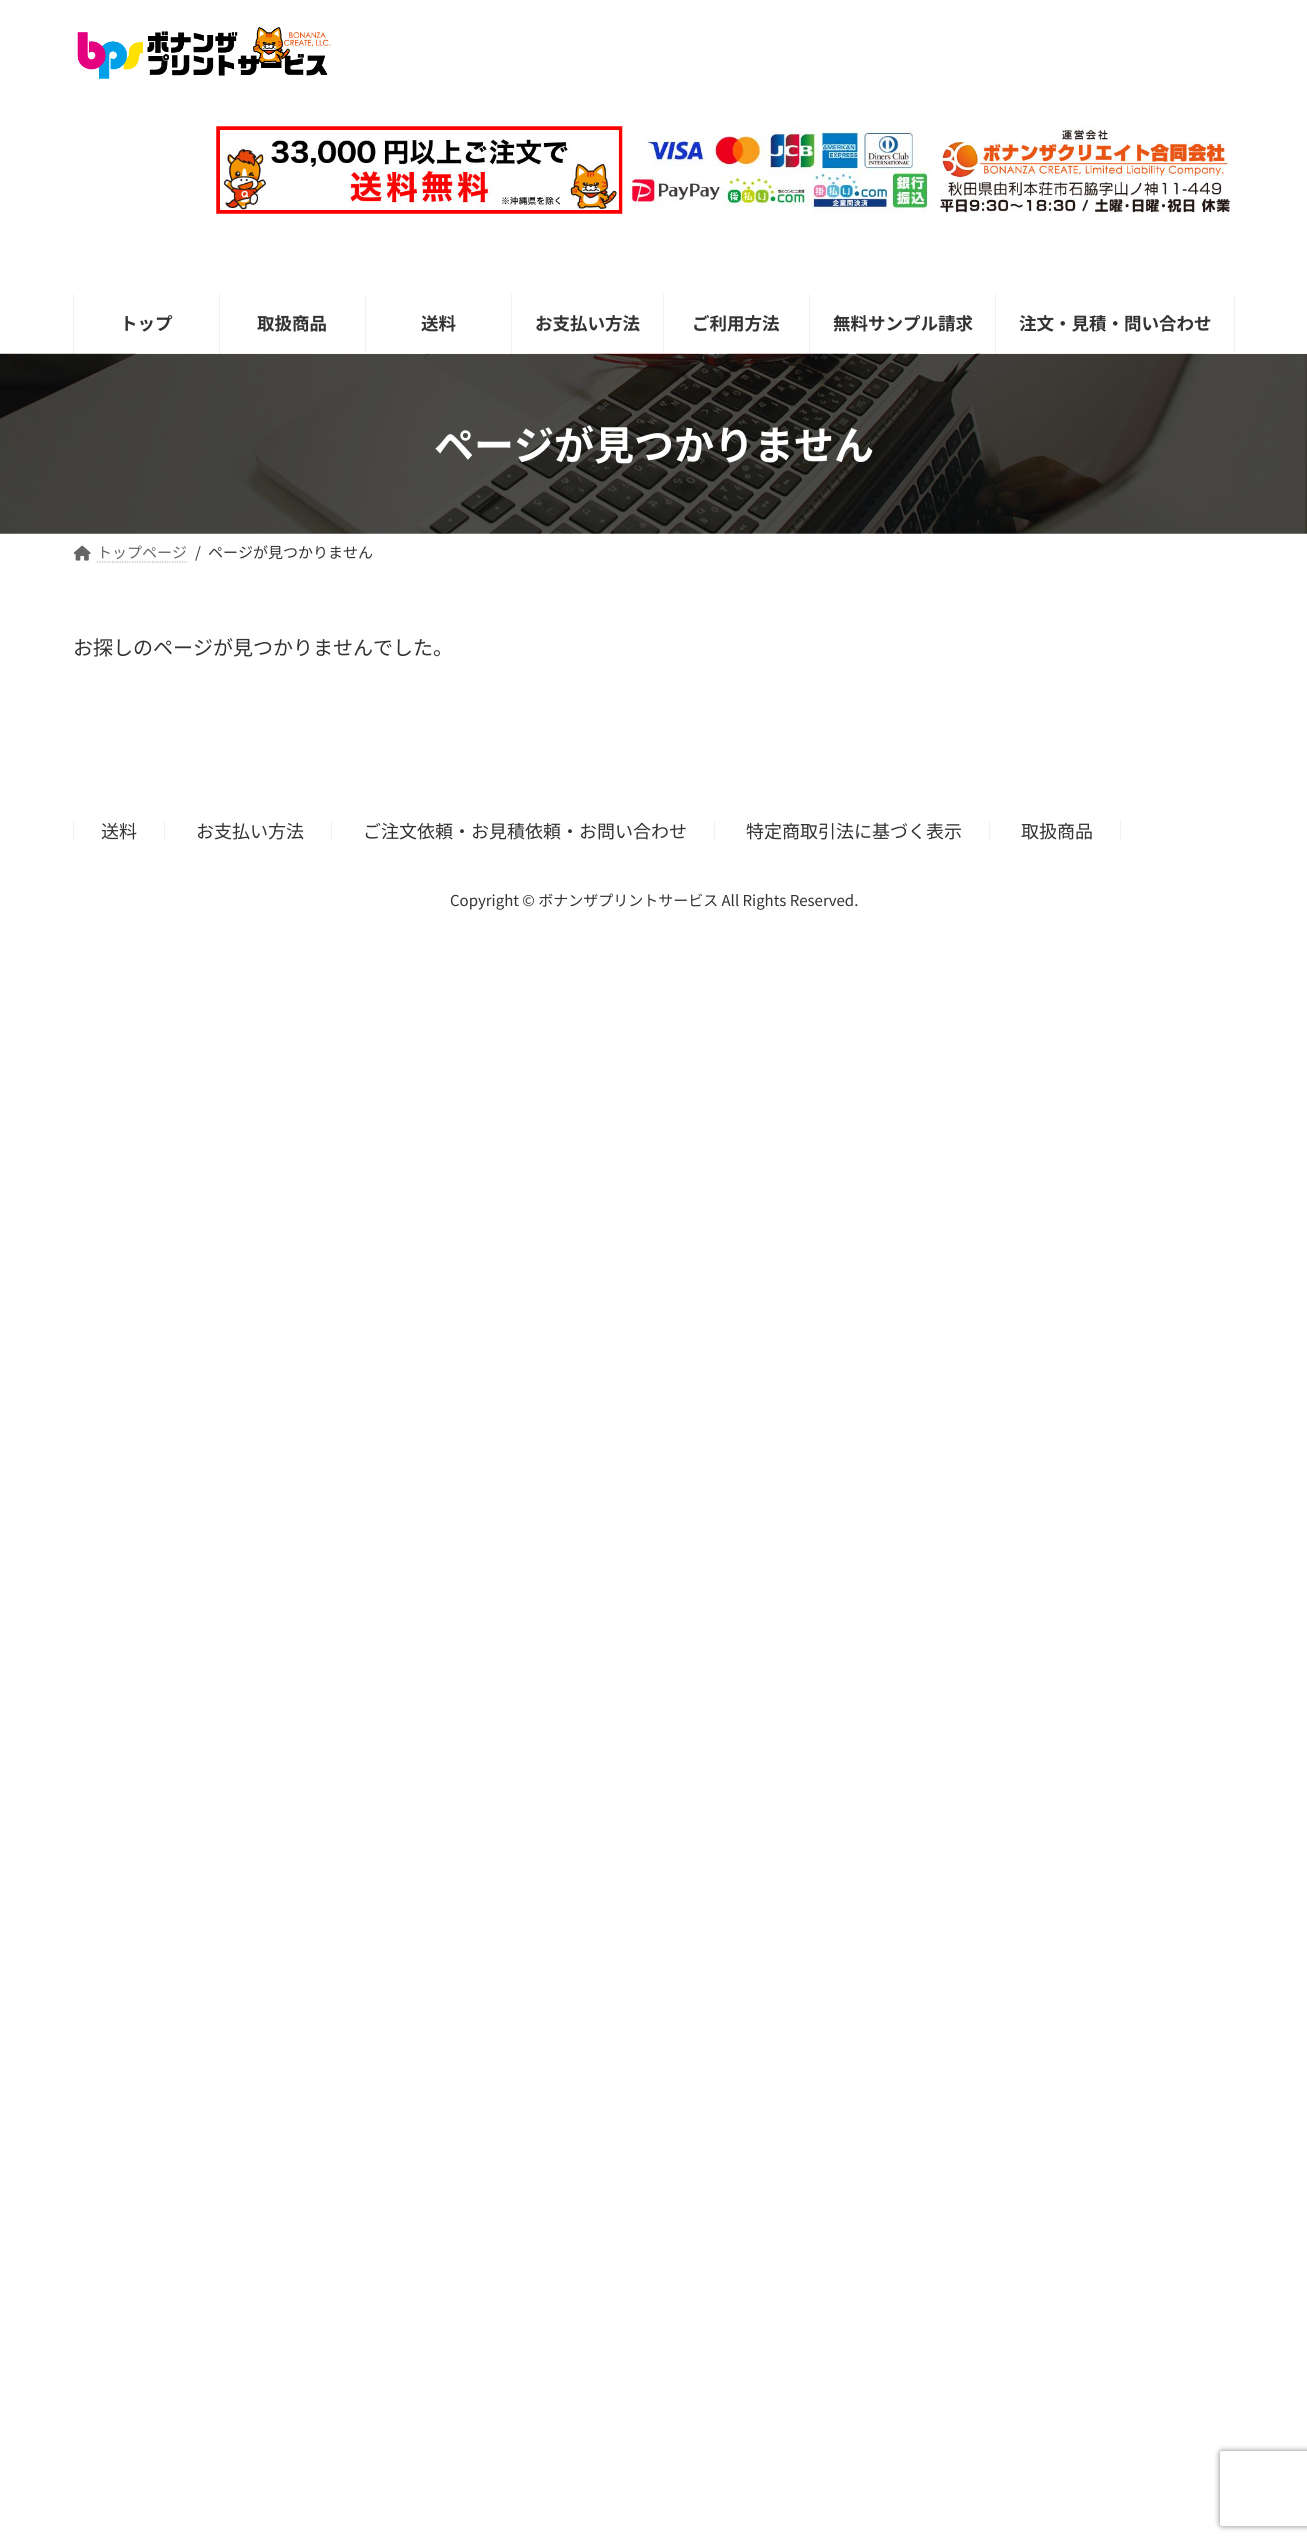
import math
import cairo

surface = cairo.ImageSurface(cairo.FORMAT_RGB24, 1307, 2543)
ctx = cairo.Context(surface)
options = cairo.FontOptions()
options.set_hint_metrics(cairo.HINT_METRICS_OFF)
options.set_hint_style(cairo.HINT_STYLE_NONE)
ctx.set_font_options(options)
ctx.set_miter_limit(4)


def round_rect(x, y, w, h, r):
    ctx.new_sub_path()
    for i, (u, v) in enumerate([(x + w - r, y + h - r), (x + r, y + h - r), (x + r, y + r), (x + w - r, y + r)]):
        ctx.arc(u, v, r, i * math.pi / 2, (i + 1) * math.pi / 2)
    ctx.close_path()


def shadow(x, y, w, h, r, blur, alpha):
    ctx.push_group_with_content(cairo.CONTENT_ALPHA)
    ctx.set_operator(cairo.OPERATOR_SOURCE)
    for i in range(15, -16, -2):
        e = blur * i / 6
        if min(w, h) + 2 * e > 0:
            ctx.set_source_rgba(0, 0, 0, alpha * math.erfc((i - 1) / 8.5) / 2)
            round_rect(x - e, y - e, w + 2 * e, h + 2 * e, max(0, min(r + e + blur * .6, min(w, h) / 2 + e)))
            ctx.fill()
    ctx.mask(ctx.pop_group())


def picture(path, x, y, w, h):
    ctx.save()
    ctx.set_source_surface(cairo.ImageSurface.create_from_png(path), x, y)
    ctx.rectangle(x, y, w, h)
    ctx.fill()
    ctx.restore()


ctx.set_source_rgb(1, 1, 1)
ctx.paint()
picture("img1.png", 77, 27, 254, 52)
picture("img2.png", 216, 126, 407, 88)
picture("img3.png", 622, 126, 310, 88)
picture("img4.png", 940, 126, 290, 88)
picture("img5.png", 0, 353, 1307, 181)
ctx.set_source_rgba(0, 0, 0, 0.06)
ctx.rectangle(219, 294, 1, 60)
ctx.fill()
ctx.rectangle(73, 294, 1, 60)
ctx.fill()
ctx.select_font_face("Noto Sans JP", cairo.FONT_SLANT_NORMAL, cairo.FONT_WEIGHT_BOLD)
ctx.set_font_size(17.5)
ctx.set_source_rgb(0.2, 0.2, 0.2)
ctx.move_to(120, 330)
ctx.show_text("トップ")
ctx.set_source_rgba(0, 0, 0, 0.06)
ctx.rectangle(365, 294, 1, 60)
ctx.fill()
ctx.set_source_rgb(0.2, 0.2, 0.2)
ctx.move_to(257, 330)
ctx.show_text("取扱商品")
ctx.set_source_rgba(0, 0, 0, 0.06)
ctx.rectangle(511, 294, 1, 60)
ctx.fill()
ctx.set_source_rgb(0.2, 0.2, 0.2)
ctx.move_to(421, 330)
ctx.show_text("送料")
ctx.set_source_rgba(0, 0, 0, 0.06)
ctx.rectangle(663, 294, 1, 60)
ctx.fill()
ctx.set_source_rgb(0.2, 0.2, 0.2)
ctx.move_to(535, 330)
ctx.show_text("お支払い方法")
ctx.set_source_rgba(0, 0, 0, 0.06)
ctx.rectangle(809, 294, 1, 60)
ctx.fill()
ctx.set_source_rgb(0.2, 0.2, 0.2)
ctx.move_to(692, 330)
ctx.show_text("ご利用方法")
ctx.set_source_rgba(0, 0, 0, 0.06)
ctx.rectangle(995, 294, 1, 60)
ctx.fill()
ctx.set_source_rgb(0.2, 0.2, 0.2)
ctx.move_to(833, 330)
ctx.show_text("無料サンプル請求")
ctx.set_source_rgba(0, 0, 0, 0.06)
ctx.rectangle(1234, 294, 1, 60)
ctx.fill()
ctx.set_source_rgb(0.2, 0.2, 0.2)
ctx.move_to(1019, 330)
ctx.show_text("注文・見積・問い合わせ")
ctx.set_font_size(40)
ctx.set_source_rgb(1, 1, 1)
ctx.move_to(434, 460)
ctx.show_text("ページが見つかりません")
picture("img6.png", 73, 545, 18, 16)
ctx.select_font_face("Noto Sans JP")
ctx.set_font_size(15)
ctx.set_source_rgb(0.4, 0.4, 0.4)
ctx.move_to(97, 558)
ctx.show_text("トップページ")
ctx.new_path()
ctx.move_to(97, 562)
ctx.line_to(187.5, 562)
ctx.set_source_rgb(0.702, 0.702, 0.702)
ctx.set_line_width(1.2)
ctx.set_dash([1.25, 1.25])
ctx.stroke()
ctx.set_source_rgb(0.2, 0.2, 0.2)
ctx.move_to(195, 558)
ctx.show_text("/")
ctx.move_to(208, 558)
ctx.show_text("ページが見つかりません")
ctx.set_font_size(20)
ctx.move_to(73, 655)
ctx.show_text("お探しのページが見つかりませんでした。")
ctx.set_source_rgb(0.941, 0.941, 0.941)
ctx.rectangle(164, 821, 1, 19)
ctx.fill()
ctx.rectangle(73, 821, 1, 19)
ctx.fill()
ctx.set_font_size(18)
ctx.set_source_rgb(0.2, 0.2, 0.2)
ctx.move_to(101, 838)
ctx.show_text("送料")
ctx.set_source_rgb(0.941, 0.941, 0.941)
ctx.rectangle(331, 821, 1, 19)
ctx.fill()
ctx.set_source_rgb(0.2, 0.2, 0.2)
ctx.move_to(196, 838)
ctx.show_text("お支払い方法")
ctx.set_source_rgb(0.941, 0.941, 0.941)
ctx.rectangle(714, 821, 1, 19)
ctx.fill()
ctx.set_source_rgb(0.2, 0.2, 0.2)
ctx.move_to(363, 838)
ctx.show_text("ご注文依頼・お見積依頼・お問い合わせ")
ctx.set_source_rgb(0.941, 0.941, 0.941)
ctx.rectangle(989, 821, 1, 19)
ctx.fill()
ctx.set_source_rgb(0.2, 0.2, 0.2)
ctx.move_to(746, 838)
ctx.show_text("特定商取引法に基づく表示")
ctx.set_source_rgb(0.941, 0.941, 0.941)
ctx.rectangle(1120, 821, 1, 19)
ctx.fill()
ctx.set_source_rgb(0.2, 0.2, 0.2)
ctx.move_to(1021, 838)
ctx.show_text("取扱商品")
ctx.set_font_size(15)
ctx.move_to(450, 906)
ctx.show_text("Copyright © ボナンザプリントサービス All Rights Reserved.")
ctx.save()
ctx.set_fill_rule(cairo.FILL_RULE_EVEN_ODD)
ctx.new_path()
ctx.move_to(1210, 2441)
ctx.line_to(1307, 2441)
ctx.line_to(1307, 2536)
ctx.line_to(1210, 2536)
ctx.close_path()
ctx.move_to(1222.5, 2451)
ctx.line_to(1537.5, 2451)
ctx.curve_to(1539, 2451, 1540, 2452, 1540, 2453.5)
ctx.line_to(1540, 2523.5)
ctx.curve_to(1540, 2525, 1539, 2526, 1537.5, 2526)
ctx.line_to(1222.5, 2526)
ctx.curve_to(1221, 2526, 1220, 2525, 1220, 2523.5)
ctx.line_to(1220, 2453.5)
ctx.curve_to(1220, 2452, 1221, 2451, 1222.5, 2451)
ctx.close_path()
ctx.clip()
ctx.set_source_rgb(0.502, 0.502, 0.502)
shadow(1220, 2451, 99, 75, 2.5, 3, 1)
ctx.restore()
surface.write_to_png("page.png")
